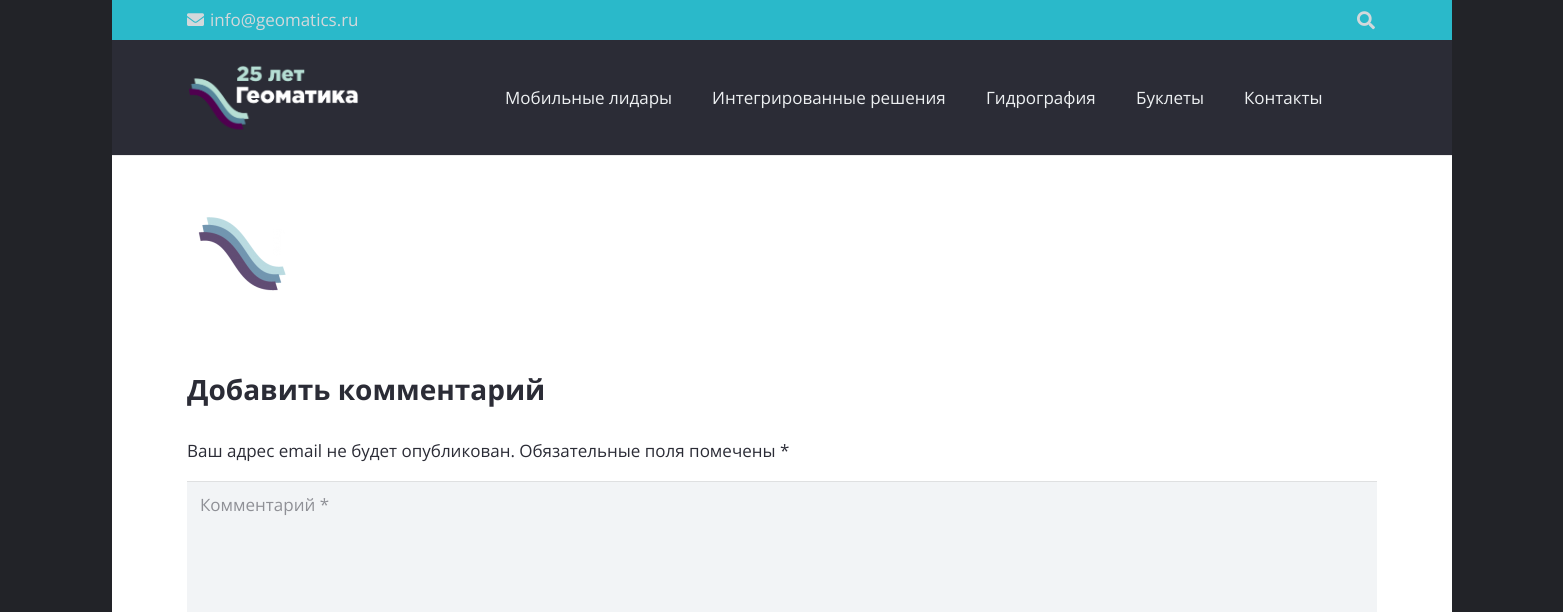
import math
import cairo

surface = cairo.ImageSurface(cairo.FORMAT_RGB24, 1563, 612)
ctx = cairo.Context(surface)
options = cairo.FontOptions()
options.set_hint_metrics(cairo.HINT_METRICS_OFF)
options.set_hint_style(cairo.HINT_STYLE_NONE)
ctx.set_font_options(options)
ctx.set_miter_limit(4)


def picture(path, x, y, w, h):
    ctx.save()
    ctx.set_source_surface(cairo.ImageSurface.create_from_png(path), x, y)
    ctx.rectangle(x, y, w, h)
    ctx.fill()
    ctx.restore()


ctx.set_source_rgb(0.133, 0.137, 0.157)
ctx.paint()
ctx.set_source_rgb(1, 1, 1)
ctx.rectangle(112, 156, 1340, 456)
ctx.fill()
ctx.set_source_rgb(0.165, 0.725, 0.792)
ctx.rectangle(112, 0, 1340, 40)
ctx.fill()
picture("img1.png", 187, 13, 17, 13)
ctx.select_font_face("Open Sans")
ctx.set_font_size(17)
ctx.set_source_rgb(0.827, 0.847, 0.859)
ctx.move_to(210, 26)
ctx.show_text("info@geomatics.ru")
picture("img2.png", 1357, 11, 18, 19)
ctx.set_source_rgb(0.922, 0.922, 0.922)
ctx.rectangle(112, 155, 1340, 1)
ctx.fill()
ctx.set_source_rgb(0.169, 0.173, 0.212)
ctx.rectangle(112, 40, 1340, 115)
ctx.fill()
picture("img3.png", 189, 65, 170, 65)
ctx.set_source_rgb(0.929, 0.941, 0.949)
ctx.move_to(505, 104)
ctx.show_text("Мобильные лидары")
ctx.move_to(712, 104)
ctx.show_text("Интегрированные решения")
ctx.move_to(986, 104)
ctx.show_text("Гидрография")
ctx.move_to(1136, 104)
ctx.show_text("Буклеты")
ctx.move_to(1244, 104)
ctx.show_text("Контакты")
picture("img4.png", 198, 217, 88, 74)
ctx.select_font_face("Open Sans", cairo.FONT_SLANT_NORMAL, cairo.FONT_WEIGHT_BOLD)
ctx.set_font_size(28)
ctx.set_source_rgb(0.169, 0.173, 0.212)
ctx.move_to(187, 400)
ctx.show_text("Добавить комментарий")
ctx.select_font_face("Open Sans")
ctx.set_font_size(17)
ctx.move_to(187, 457)
ctx.show_text("Ваш адрес email не будет опубликован. Обязательные поля помечены *")
ctx.set_source_rgb(0.949, 0.957, 0.961)
ctx.rectangle(187, 482, 1190, 130)
ctx.fill()
ctx.set_source_rgb(0.875, 0.878, 0.882)
ctx.rectangle(187, 481, 1190, 1)
ctx.fill()
ctx.set_source_rgb(0.561, 0.565, 0.588)
ctx.move_to(200, 511)
ctx.show_text("Комментарий *")
surface.write_to_png("page.png")
